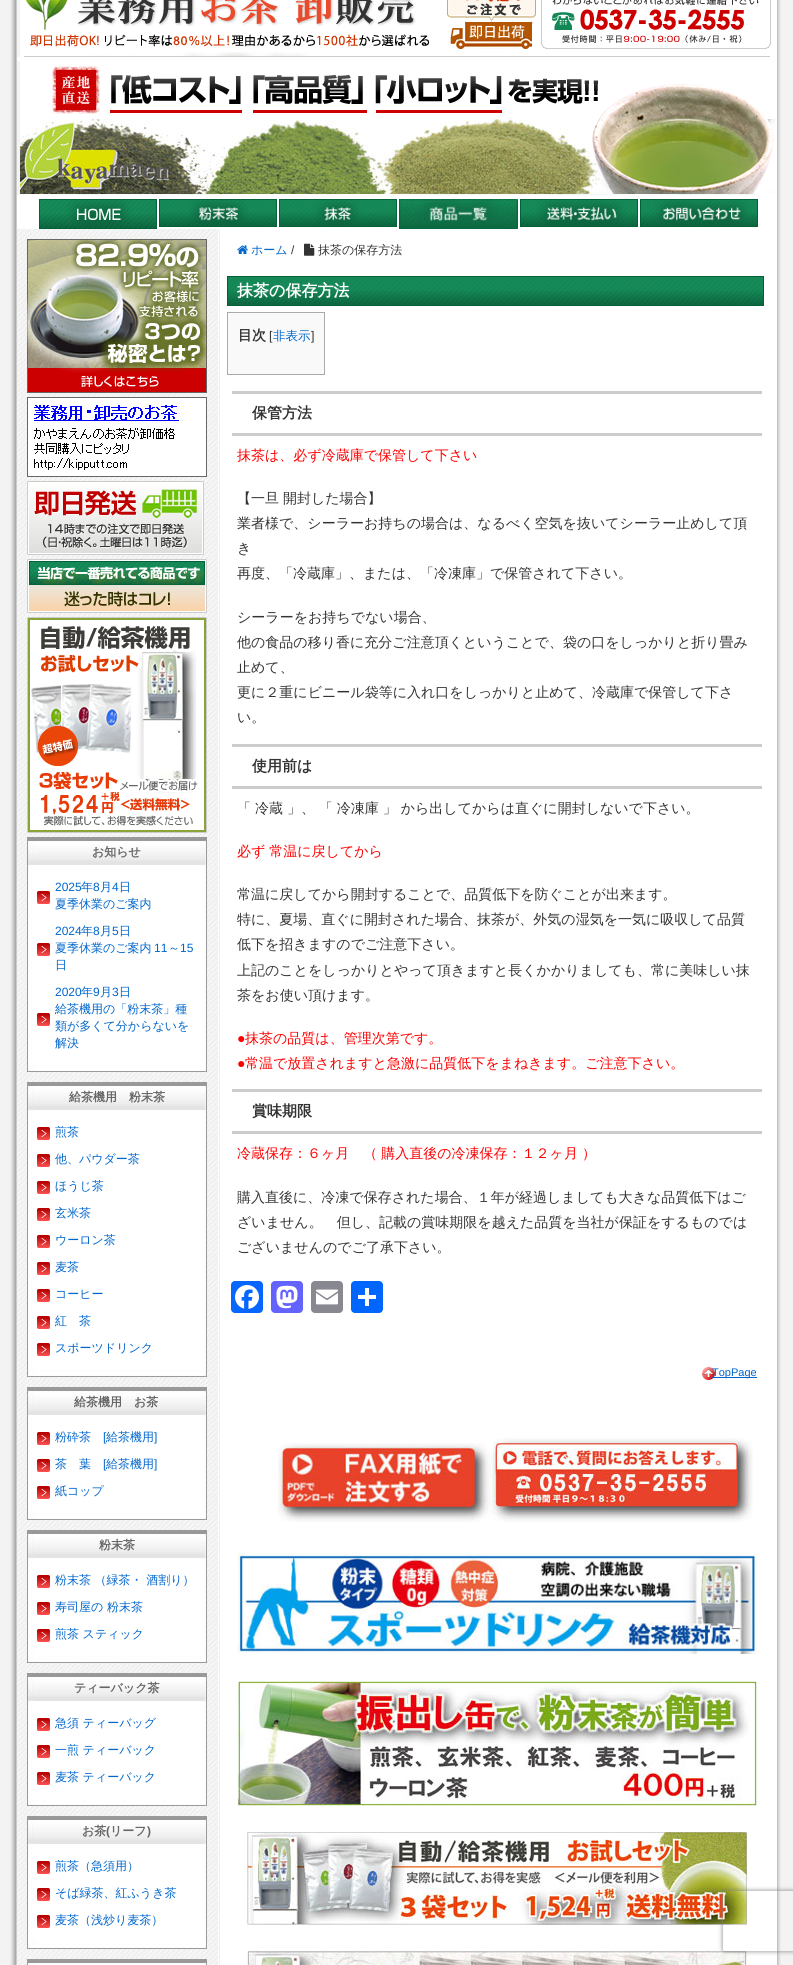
import math
import cairo

surface = cairo.ImageSurface(cairo.FORMAT_RGB24, 793, 1965)
ctx = cairo.Context(surface)
options = cairo.FontOptions()
options.set_hint_metrics(cairo.HINT_METRICS_OFF)
options.set_hint_style(cairo.HINT_STYLE_NONE)
ctx.set_font_options(options)
ctx.set_miter_limit(4)


def spaced_text(x, y, s, letter, word):
    ctx.move_to(x, y)
    for ch in s:
        ctx.show_text(ch)
        ctx.rel_move_to(letter + word * (ch == ' '), 0)


def round_rect(x, y, w, h, r):
    ctx.new_sub_path()
    for i, (u, v) in enumerate([(x + w - r, y + h - r), (x + r, y + h - r), (x + r, y + r), (x + w - r, y + r)]):
        ctx.arc(u, v, r, i * math.pi / 2, (i + 1) * math.pi / 2)
    ctx.close_path()


def shadow(x, y, w, h, r, blur, alpha):
    ctx.push_group_with_content(cairo.CONTENT_ALPHA)
    ctx.set_operator(cairo.OPERATOR_SOURCE)
    for i in range(15, -16, -2):
        e = blur * i / 6
        if min(w, h) + 2 * e > 0:
            ctx.set_source_rgba(0, 0, 0, alpha * math.erfc((i - 1) / 8.5) / 2)
            round_rect(x - e, y - e, w + 2 * e, h + 2 * e, max(0, min(r + e + blur * .6, min(w, h) / 2 + e)))
            ctx.fill()
    ctx.mask(ctx.pop_group())


def picture(path, x, y, w, h):
    ctx.save()
    ctx.set_source_surface(cairo.ImageSurface.create_from_png(path), x, y)
    ctx.rectangle(x, y, w, h)
    ctx.fill()
    ctx.restore()


ctx.set_source_rgb(0.953, 0.953, 0.953)
ctx.paint()
picture("img1.png", 10, 0, 771, 1965)
ctx.set_source_rgb(1, 1, 1)
ctx.rectangle(17, 0, 760, 1965)
ctx.fill()
picture("img2.png", 17, 0, 754, 57)
picture("img3.png", 17, 61, 758, 134)
picture("img4.png", 39, 199, 118, 30)
picture("img5.png", 159, 199, 118, 28)
picture("img6.png", 279, 199, 118, 28)
picture("img7.png", 399, 199, 119, 30)
picture("img8.png", 520, 199, 118, 28)
picture("img9.png", 640, 199, 118, 28)
picture("img10.png", 17, 229, 203, 1736)
picture("img11.png", 27, 239, 180, 154)
picture("img12.png", 27, 397, 180, 80)
picture("img13.png", 27, 481, 177, 74)
picture("img14.png", 27, 559, 180, 54)
picture("img15.png", 27, 617, 180, 216)
picture("img16.png", 27, 837, 180, 30)
ctx.select_font_face("WenQuanYi Zen Hei", cairo.FONT_SLANT_NORMAL, cairo.FONT_WEIGHT_BOLD)
ctx.set_font_size(12)
ctx.set_source_rgb(0.4, 0.4, 0.4)
ctx.move_to(92, 856)
ctx.show_text("お知らせ")
picture("img17.png", 27, 867, 180, 205)
picture("img18.png", 37, 891, 13, 13)
ctx.select_font_face("Liberation Sans")
ctx.set_source_rgb(0, 0.4, 0.8)
ctx.move_to(55, 891)
ctx.show_text("2025")
ctx.select_font_face("WenQuanYi Zen Hei Medium")
ctx.move_to(81, 891)
ctx.show_text("年")
ctx.select_font_face("Liberation Sans")
ctx.move_to(93, 891)
ctx.show_text("8")
ctx.select_font_face("WenQuanYi Zen Hei Medium")
ctx.move_to(100, 891)
ctx.show_text("月")
ctx.select_font_face("Liberation Sans")
ctx.move_to(112, 891)
ctx.show_text("4")
ctx.select_font_face("WenQuanYi Zen Hei Medium")
ctx.move_to(119, 891)
ctx.show_text("日")
ctx.move_to(55, 908)
ctx.show_text("夏季休業のご案内")
picture("img18.png", 37, 943, 13, 13)
ctx.select_font_face("Liberation Sans")
ctx.move_to(55, 935)
ctx.show_text("2024")
ctx.select_font_face("WenQuanYi Zen Hei Medium")
ctx.move_to(81, 935)
ctx.show_text("年")
ctx.select_font_face("Liberation Sans")
ctx.move_to(93, 935)
ctx.show_text("8")
ctx.select_font_face("WenQuanYi Zen Hei Medium")
ctx.move_to(100, 935)
ctx.show_text("月")
ctx.select_font_face("Liberation Sans")
ctx.move_to(112, 935)
ctx.show_text("5")
ctx.select_font_face("WenQuanYi Zen Hei Medium")
ctx.move_to(119, 935)
ctx.show_text("日")
ctx.move_to(55, 952)
ctx.show_text("夏季休業のご案内")
ctx.select_font_face("Liberation Sans")
ctx.move_to(154, 952)
ctx.show_text("11")
ctx.select_font_face("WenQuanYi Zen Hei Medium")
ctx.move_to(168, 952)
ctx.show_text("～")
ctx.select_font_face("Liberation Sans")
ctx.move_to(180, 952)
ctx.show_text("15")
ctx.select_font_face("WenQuanYi Zen Hei Medium")
ctx.move_to(55, 969)
ctx.show_text("日")
picture("img18.png", 37, 1013, 13, 13)
ctx.select_font_face("Liberation Sans")
ctx.move_to(55, 996)
ctx.show_text("2020")
ctx.select_font_face("WenQuanYi Zen Hei Medium")
ctx.move_to(81, 996)
ctx.show_text("年")
ctx.select_font_face("Liberation Sans")
ctx.move_to(93, 996)
ctx.show_text("9")
ctx.select_font_face("WenQuanYi Zen Hei Medium")
ctx.move_to(100, 996)
ctx.show_text("月")
ctx.select_font_face("Liberation Sans")
ctx.move_to(112, 996)
ctx.show_text("3")
ctx.select_font_face("WenQuanYi Zen Hei Medium")
ctx.move_to(119, 996)
ctx.show_text("日")
ctx.move_to(55, 1013)
ctx.show_text("給茶機用の「粉末茶」種")
ctx.move_to(55, 1030)
ctx.show_text("類が多くて分からないを")
ctx.move_to(55, 1047)
ctx.show_text("解決")
picture("img16.png", 27, 1082, 180, 30)
ctx.select_font_face("WenQuanYi Zen Hei", cairo.FONT_SLANT_NORMAL, cairo.FONT_WEIGHT_BOLD)
ctx.set_source_rgb(0.4, 0.4, 0.4)
ctx.move_to(69, 1101)
ctx.show_text("給茶機用　粉末茶")
picture("img19.png", 27, 1112, 180, 265)
picture("img18.png", 37, 1127, 13, 13)
ctx.select_font_face("WenQuanYi Zen Hei Medium")
ctx.set_source_rgb(0, 0.4, 0.8)
ctx.move_to(55, 1136)
ctx.show_text("煎茶")
picture("img18.png", 37, 1154, 13, 13)
ctx.move_to(55, 1163)
ctx.show_text("他、パウダー茶")
picture("img18.png", 37, 1181, 13, 13)
ctx.move_to(55, 1190)
ctx.show_text("ほうじ茶")
picture("img18.png", 37, 1208, 13, 13)
ctx.move_to(55, 1217)
ctx.show_text("玄米茶")
picture("img18.png", 37, 1235, 13, 13)
ctx.move_to(55, 1244)
ctx.show_text("ウーロン茶")
picture("img18.png", 37, 1262, 13, 13)
ctx.move_to(55, 1271)
ctx.show_text("麦茶")
picture("img18.png", 37, 1289, 13, 13)
ctx.move_to(55, 1298)
ctx.show_text("コーヒー")
picture("img18.png", 37, 1316, 13, 13)
ctx.move_to(55, 1325)
ctx.show_text("紅　茶")
picture("img18.png", 37, 1343, 13, 13)
ctx.move_to(55, 1352)
ctx.show_text("スポーツドリンク")
picture("img16.png", 27, 1387, 180, 30)
ctx.select_font_face("WenQuanYi Zen Hei", cairo.FONT_SLANT_NORMAL, cairo.FONT_WEIGHT_BOLD)
ctx.set_source_rgb(0.4, 0.4, 0.4)
ctx.move_to(74, 1406)
ctx.show_text("給茶機用　お茶")
picture("img20.png", 27, 1417, 180, 103)
picture("img18.png", 37, 1432, 13, 13)
ctx.select_font_face("WenQuanYi Zen Hei Medium")
ctx.set_source_rgb(0, 0.4, 0.8)
ctx.move_to(55, 1441)
ctx.show_text("粉砕茶")
ctx.select_font_face("Liberation Sans")
ctx.move_to(103, 1441)
ctx.show_text("[")
ctx.select_font_face("WenQuanYi Zen Hei Medium")
ctx.move_to(106, 1441)
ctx.show_text("給茶機用")
ctx.select_font_face("Liberation Sans")
ctx.move_to(154, 1441)
ctx.show_text("]")
picture("img18.png", 37, 1459, 13, 13)
ctx.select_font_face("WenQuanYi Zen Hei Medium")
ctx.move_to(55, 1468)
ctx.show_text("茶　葉")
ctx.select_font_face("Liberation Sans")
ctx.move_to(103, 1468)
ctx.show_text("[")
ctx.select_font_face("WenQuanYi Zen Hei Medium")
ctx.move_to(106, 1468)
ctx.show_text("給茶機用")
ctx.select_font_face("Liberation Sans")
ctx.move_to(154, 1468)
ctx.show_text("]")
picture("img18.png", 37, 1486, 13, 13)
ctx.select_font_face("WenQuanYi Zen Hei Medium")
ctx.move_to(55, 1495)
ctx.show_text("紙コップ")
picture("img16.png", 27, 1530, 180, 30)
ctx.select_font_face("WenQuanYi Zen Hei", cairo.FONT_SLANT_NORMAL, cairo.FONT_WEIGHT_BOLD)
ctx.set_source_rgb(0.4, 0.4, 0.4)
ctx.move_to(99, 1549)
ctx.show_text("粉末茶")
picture("img20.png", 27, 1560, 180, 103)
picture("img18.png", 37, 1575, 13, 13)
ctx.select_font_face("WenQuanYi Zen Hei Medium")
ctx.set_source_rgb(0, 0.4, 0.8)
ctx.move_to(55, 1584)
ctx.show_text("粉末茶 （緑茶・ 酒割り）")
picture("img18.png", 37, 1602, 13, 13)
ctx.move_to(55, 1611)
ctx.show_text("寿司屋の 粉末茶")
picture("img18.png", 37, 1629, 13, 13)
ctx.move_to(55, 1638)
ctx.show_text("煎茶 スティック")
picture("img16.png", 27, 1673, 180, 30)
ctx.select_font_face("WenQuanYi Zen Hei", cairo.FONT_SLANT_NORMAL, cairo.FONT_WEIGHT_BOLD)
ctx.set_source_rgb(0.4, 0.4, 0.4)
ctx.move_to(74, 1692)
ctx.show_text("ティーバック茶")
picture("img20.png", 27, 1703, 180, 103)
picture("img18.png", 37, 1718, 13, 13)
ctx.select_font_face("WenQuanYi Zen Hei Medium")
ctx.set_source_rgb(0, 0.4, 0.8)
ctx.move_to(55, 1727)
ctx.show_text("急須 ティーバッグ")
picture("img18.png", 37, 1745, 13, 13)
ctx.move_to(55, 1754)
ctx.show_text("一煎 ティーバック")
picture("img18.png", 37, 1772, 13, 13)
ctx.move_to(55, 1781)
ctx.show_text("麦茶 ティーバック")
picture("img16.png", 27, 1816, 180, 30)
ctx.select_font_face("WenQuanYi Zen Hei", cairo.FONT_SLANT_NORMAL, cairo.FONT_WEIGHT_BOLD)
ctx.set_source_rgb(0.4, 0.4, 0.4)
ctx.move_to(82, 1835)
ctx.show_text("お茶")
ctx.select_font_face("Liberation Sans", cairo.FONT_SLANT_NORMAL, cairo.FONT_WEIGHT_BOLD)
ctx.move_to(106, 1835)
ctx.show_text("(")
ctx.select_font_face("WenQuanYi Zen Hei", cairo.FONT_SLANT_NORMAL, cairo.FONT_WEIGHT_BOLD)
ctx.move_to(110, 1835)
ctx.show_text("リーフ")
ctx.select_font_face("Liberation Sans", cairo.FONT_SLANT_NORMAL, cairo.FONT_WEIGHT_BOLD)
ctx.move_to(147, 1835)
ctx.show_text(")")
picture("img20.png", 27, 1846, 180, 103)
picture("img18.png", 37, 1861, 13, 13)
ctx.select_font_face("WenQuanYi Zen Hei Medium")
ctx.set_source_rgb(0, 0.4, 0.8)
ctx.move_to(55, 1870)
ctx.show_text("煎茶（急須用）")
picture("img18.png", 37, 1888, 13, 13)
ctx.move_to(55, 1897)
ctx.show_text("そば緑茶、紅ふうき茶")
picture("img18.png", 37, 1915, 13, 13)
ctx.move_to(55, 1924)
ctx.show_text("麦茶（浅炒り麦茶）")
picture("img21.png", 27, 1959, 180, 6)
picture("img22.png", 237, 245, 11, 9)
ctx.move_to(251, 254)
ctx.show_text("ホーム")
ctx.select_font_face("Liberation Sans")
ctx.set_source_rgb(0.2, 0.2, 0.2)
ctx.move_to(291, 254)
ctx.show_text("/")
picture("img23.png", 304, 243, 11, 13)
ctx.select_font_face("WenQuanYi Zen Hei Medium")
ctx.move_to(318, 254)
ctx.show_text("抹茶の保存方法")
picture("img24.png", 227, 276, 537, 30)
ctx.select_font_face("WenQuanYi Zen Hei", cairo.FONT_SLANT_NORMAL, cairo.FONT_WEIGHT_BOLD)
ctx.set_font_size(16)
ctx.set_source_rgb(1, 1, 1)
ctx.move_to(237, 296)
ctx.show_text("抹茶の保存方法")
ctx.set_source_rgb(0.976, 0.976, 0.976)
ctx.rectangle(227.5, 312.5, 97, 62)
ctx.fill_preserve()
ctx.set_source_rgb(0.667, 0.667, 0.667)
ctx.set_line_width(1)
ctx.stroke()
ctx.set_font_size(14)
ctx.set_source_rgb(0.2, 0.2, 0.2)
ctx.move_to(238, 340)
ctx.show_text("目次")
ctx.select_font_face("Liberation Sans")
ctx.set_font_size(12.5)
ctx.move_to(269, 340)
ctx.show_text("[")
ctx.select_font_face("WenQuanYi Zen Hei Medium")
ctx.set_source_rgb(0, 0.4, 0.8)
ctx.move_to(273, 340)
ctx.show_text("非表示")
ctx.select_font_face("Liberation Sans")
ctx.set_source_rgb(0.2, 0.2, 0.2)
ctx.move_to(311, 340)
ctx.show_text("]")
ctx.set_source_rgb(0.8, 0.8, 0.8)
ctx.rectangle(232, 391, 530, 3)
ctx.fill()
ctx.rectangle(232, 433, 530, 3)
ctx.fill()
ctx.select_font_face("WenQuanYi Zen Hei", cairo.FONT_SLANT_NORMAL, cairo.FONT_WEIGHT_BOLD)
ctx.set_font_size(15)
ctx.set_source_rgb(0.2, 0.2, 0.2)
ctx.move_to(252, 418)
ctx.show_text("保管方法")
ctx.select_font_face("WenQuanYi Zen Hei Medium")
ctx.set_font_size(14)
ctx.set_source_rgb(1, 0, 0)
ctx.move_to(237, 460)
ctx.show_text("抹茶は、必ず冷蔵庫で保管して下さい")
ctx.set_source_rgb(0.2, 0.2, 0.2)
spaced_text(237, 503, "【一旦 開封した場合】", 0, -0.25)
ctx.move_to(237, 528)
ctx.show_text("業者様で、シーラーお持ちの場合は、なるべく空気を抜いてシーラー止めして頂")
ctx.move_to(237, 553)
ctx.show_text("き")
ctx.move_to(237, 578)
ctx.show_text("再度、「冷蔵庫」、または、「冷凍庫」で保管されて下さい。")
ctx.move_to(237, 622)
ctx.show_text("シーラーをお持ちでない場合、")
ctx.move_to(237, 647)
ctx.show_text("他の食品の移り香に充分ご注意頂くということで、袋の口をしっかりと折り畳み")
ctx.move_to(237, 672)
ctx.show_text("止めて、")
ctx.move_to(237, 697)
ctx.show_text("更に２重にビニール袋等に入れ口をしっかりと止めて、冷蔵庫で保管して下さ")
ctx.move_to(237, 722)
ctx.show_text("い。")
ctx.set_source_rgb(0.8, 0.8, 0.8)
ctx.rectangle(232, 744, 530, 3)
ctx.fill()
ctx.rectangle(232, 786, 530, 3)
ctx.fill()
ctx.select_font_face("WenQuanYi Zen Hei", cairo.FONT_SLANT_NORMAL, cairo.FONT_WEIGHT_BOLD)
ctx.set_font_size(15)
ctx.set_source_rgb(0.2, 0.2, 0.2)
ctx.move_to(252, 771)
ctx.show_text("使用前は")
ctx.select_font_face("WenQuanYi Zen Hei Medium")
ctx.set_font_size(14)
spaced_text(237, 813, "「 冷蔵 」、 「 冷凍庫 」 から出してからは直ぐに開封しないで下さい。", 0, -0.25)
ctx.set_source_rgb(1, 0, 0)
spaced_text(237, 856, "必ず 常温に戻してから", 0, -0.25)
ctx.set_source_rgb(0.2, 0.2, 0.2)
ctx.move_to(237, 899)
ctx.show_text("常温に戻してから開封することで、品質低下を防ぐことが出来ます。")
ctx.move_to(237, 924)
ctx.show_text("特に、夏場、直ぐに開封された場合、抹茶が、外気の湿気を一気に吸収して品質")
ctx.move_to(237, 949)
ctx.show_text("低下を招きますのでご注意下さい。")
ctx.move_to(237, 975)
ctx.show_text("上記のことをしっかりとやって頂きますと長くかかりましても、常に美味しい抹")
ctx.move_to(237, 1000)
ctx.show_text("茶をお使い頂けます。")
ctx.select_font_face("Liberation Sans")
ctx.set_source_rgb(1, 0, 0)
ctx.move_to(237, 1043)
ctx.show_text("●")
ctx.select_font_face("WenQuanYi Zen Hei Medium")
ctx.move_to(245, 1043)
ctx.show_text("抹茶の品質は、管理次第です。")
ctx.select_font_face("Liberation Sans")
ctx.move_to(237, 1068)
ctx.show_text("●")
ctx.select_font_face("WenQuanYi Zen Hei Medium")
ctx.move_to(245, 1068)
ctx.show_text("常温で放置されますと急激に品質低下をまねきます。ご注意下さい。")
ctx.set_source_rgb(0.8, 0.8, 0.8)
ctx.rectangle(232, 1089, 530, 3)
ctx.fill()
ctx.rectangle(232, 1131, 530, 3)
ctx.fill()
ctx.select_font_face("WenQuanYi Zen Hei", cairo.FONT_SLANT_NORMAL, cairo.FONT_WEIGHT_BOLD)
ctx.set_font_size(15)
ctx.set_source_rgb(0.2, 0.2, 0.2)
ctx.move_to(252, 1116)
ctx.show_text("賞味期限")
ctx.select_font_face("WenQuanYi Zen Hei Medium")
ctx.set_font_size(14)
ctx.set_source_rgb(1, 0, 0)
spaced_text(237, 1158, "冷蔵保存：６ヶ月　（ 購入直後の冷凍保存：１２ヶ月 ）", 0, -0.25)
ctx.set_source_rgb(0.2, 0.2, 0.2)
ctx.move_to(237, 1202)
ctx.show_text("購入直後に、冷凍で保存された場合、１年が経過しましても大きな品質低下はご")
ctx.move_to(237, 1227)
ctx.show_text("ざいません。　但し、記載の賞味期限を越えた品質を当社が保証をするものでは")
ctx.move_to(237, 1252)
ctx.show_text("ございませんのでご了承下さい。")
ctx.set_source_rgb(0.031, 0.4, 1)
round_rect(231, 1281, 32, 32, 4)
ctx.fill()
picture("img25.png", 235, 1285, 24, 24)
ctx.set_source_rgb(0.388, 0.392, 1)
round_rect(271, 1281, 32, 32, 4)
ctx.fill()
picture("img26.png", 276, 1285, 22, 24)
ctx.set_source_rgb(0.533, 0.537, 0.565)
round_rect(311, 1281, 32, 32, 4)
ctx.fill()
picture("img27.png", 316, 1289, 22, 16)
ctx.set_source_rgb(0.004, 0.4, 1)
round_rect(351, 1281, 32, 32, 4)
ctx.fill()
ctx.set_source_rgb(1, 1, 1)
ctx.rectangle(365, 1288, 4, 18)
ctx.fill()
ctx.rectangle(358, 1295, 18, 4)
ctx.fill()
picture("img28.png", 702, 1367, 13, 13)
ctx.set_source_rgb(0, 0.4, 0.8)
ctx.rectangle(712, 1377, 45, 1)
ctx.fill()
ctx.select_font_face("Liberation Sans")
ctx.set_font_size(11)
ctx.move_to(712, 1376)
ctx.show_text("TopPage")
picture("img29.png", 278, 1443, 215, 79)
picture("img30.png", 493, 1438, 260, 84)
picture("img31.png", 237, 1553, 520, 101)
picture("img32.png", 237, 1681, 520, 125)
picture("img33.png", 247, 1832, 500, 93)
picture("img34.png", 247, 1951, 500, 14)
ctx.save()
ctx.set_fill_rule(cairo.FILL_RULE_EVEN_ODD)
ctx.new_path()
ctx.move_to(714, 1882)
ctx.line_to(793, 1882)
ctx.line_to(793, 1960)
ctx.line_to(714, 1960)
ctx.close_path()
ctx.move_to(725, 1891)
ctx.line_to(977, 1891)
ctx.curve_to(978, 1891, 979, 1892, 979, 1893)
ctx.line_to(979, 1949)
ctx.curve_to(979, 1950, 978, 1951, 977, 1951)
ctx.line_to(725, 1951)
ctx.curve_to(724, 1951, 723, 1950, 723, 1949)
ctx.line_to(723, 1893)
ctx.curve_to(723, 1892, 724, 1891, 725, 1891)
ctx.close_path()
ctx.clip()
ctx.set_source_rgb(0.502, 0.502, 0.502)
shadow(723, 1891, 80, 60, 2, 2.5, 1)
ctx.restore()
surface.write_to_png("page.png")
